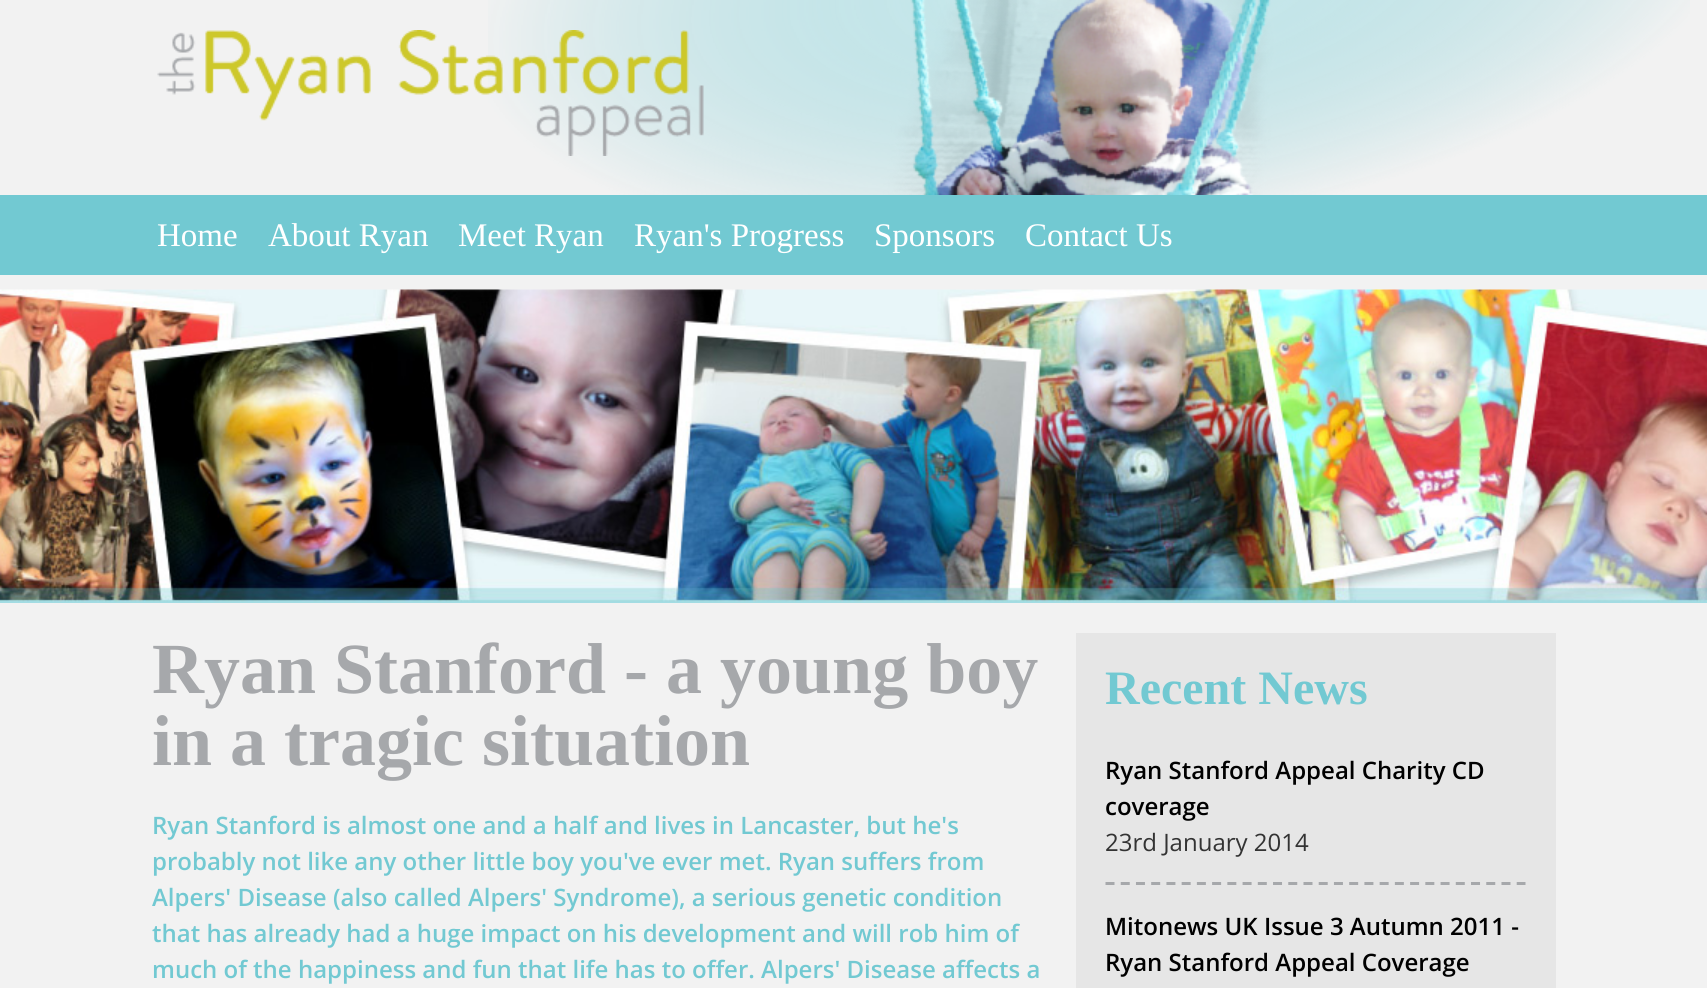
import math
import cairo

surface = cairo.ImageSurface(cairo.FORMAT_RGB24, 1707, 988)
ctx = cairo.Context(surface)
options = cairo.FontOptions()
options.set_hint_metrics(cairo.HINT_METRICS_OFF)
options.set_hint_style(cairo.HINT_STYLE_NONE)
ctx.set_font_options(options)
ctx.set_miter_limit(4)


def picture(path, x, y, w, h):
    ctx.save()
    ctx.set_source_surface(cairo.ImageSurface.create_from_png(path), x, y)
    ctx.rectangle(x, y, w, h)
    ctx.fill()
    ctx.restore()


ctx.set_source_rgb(0.949, 0.949, 0.949)
ctx.paint()
picture("img1.png", 488, 0, 1202, 195)
picture("img2.png", 157, 30, 547, 126)
ctx.set_source_rgb(0.447, 0.788, 0.824)
ctx.rectangle(0, 195, 1707, 80)
ctx.fill()
ctx.select_font_face("Liberation Serif")
ctx.set_font_size(33)
ctx.set_source_rgb(1, 1, 1)
ctx.move_to(157, 246)
ctx.show_text("Home")
ctx.move_to(268, 246)
ctx.show_text("About Ryan")
ctx.move_to(458, 246)
ctx.show_text("Meet Ryan")
ctx.move_to(634, 246)
ctx.show_text("Ryan's Progress")
ctx.move_to(874, 246)
ctx.show_text("Sponsors")
ctx.move_to(1025, 246)
ctx.show_text("Contact Us")
picture("img3.png", 0, 289, 1707, 314)
ctx.select_font_face("Liberation Serif", cairo.FONT_SLANT_NORMAL, cairo.FONT_WEIGHT_BOLD)
ctx.set_font_size(72)
ctx.set_source_rgb(0.651, 0.659, 0.671)
ctx.move_to(152, 693)
ctx.show_text("Ryan Stanford - a young boy")
ctx.move_to(152, 765)
ctx.show_text("in a tragic situation")
ctx.select_font_face("Open Sans SemiBold")
ctx.set_font_size(24)
ctx.set_source_rgb(0.447, 0.788, 0.824)
ctx.move_to(152, 834)
ctx.show_text("Ryan Stanford is almost one and a half and lives in Lancaster, but he's")
ctx.move_to(152, 870)
ctx.show_text("probably not like any other little boy you've ever met. Ryan suffers from")
ctx.move_to(152, 906)
ctx.show_text("Alpers' Disease (also called Alpers' Syndrome), a serious genetic condition")
ctx.move_to(152, 942)
ctx.show_text("that has already had a huge impact on his development and will rob him of")
ctx.move_to(152, 978)
ctx.show_text("much of the happiness and fun that life has to offer. Alpers' Disease affects a")
ctx.set_source_rgb(0.902, 0.902, 0.902)
ctx.rectangle(1076, 633, 480, 355)
ctx.fill()
ctx.select_font_face("Liberation Serif", cairo.FONT_SLANT_NORMAL, cairo.FONT_WEIGHT_BOLD)
ctx.set_font_size(48)
ctx.set_source_rgb(0.447, 0.788, 0.824)
ctx.move_to(1105, 704)
ctx.show_text("Recent News")
ctx.new_path()
ctx.move_to(1105.5, 883.5)
ctx.line_to(1525.5, 883.5)
ctx.set_source_rgb(0.651, 0.659, 0.671)
ctx.set_line_width(3)
ctx.set_dash([9, 6.23])
ctx.stroke()
ctx.select_font_face("Open Sans SemiBold")
ctx.set_font_size(24)
ctx.set_source_rgb(0, 0, 0)
ctx.move_to(1105, 779)
ctx.show_text("Ryan Stanford Appeal Charity CD")
ctx.move_to(1105, 815)
ctx.show_text("coverage")
ctx.select_font_face("Open Sans")
ctx.set_source_rgb(0.2, 0.2, 0.2)
ctx.move_to(1105, 851)
ctx.show_text("23rd January 2014")
ctx.select_font_face("Open Sans SemiBold")
ctx.set_source_rgb(0, 0, 0)
ctx.move_to(1105, 935)
ctx.show_text("Mitonews UK Issue 3 Autumn 2011 -")
ctx.move_to(1105, 971)
ctx.show_text("Ryan Stanford Appeal Coverage")
surface.write_to_png("page.png")
